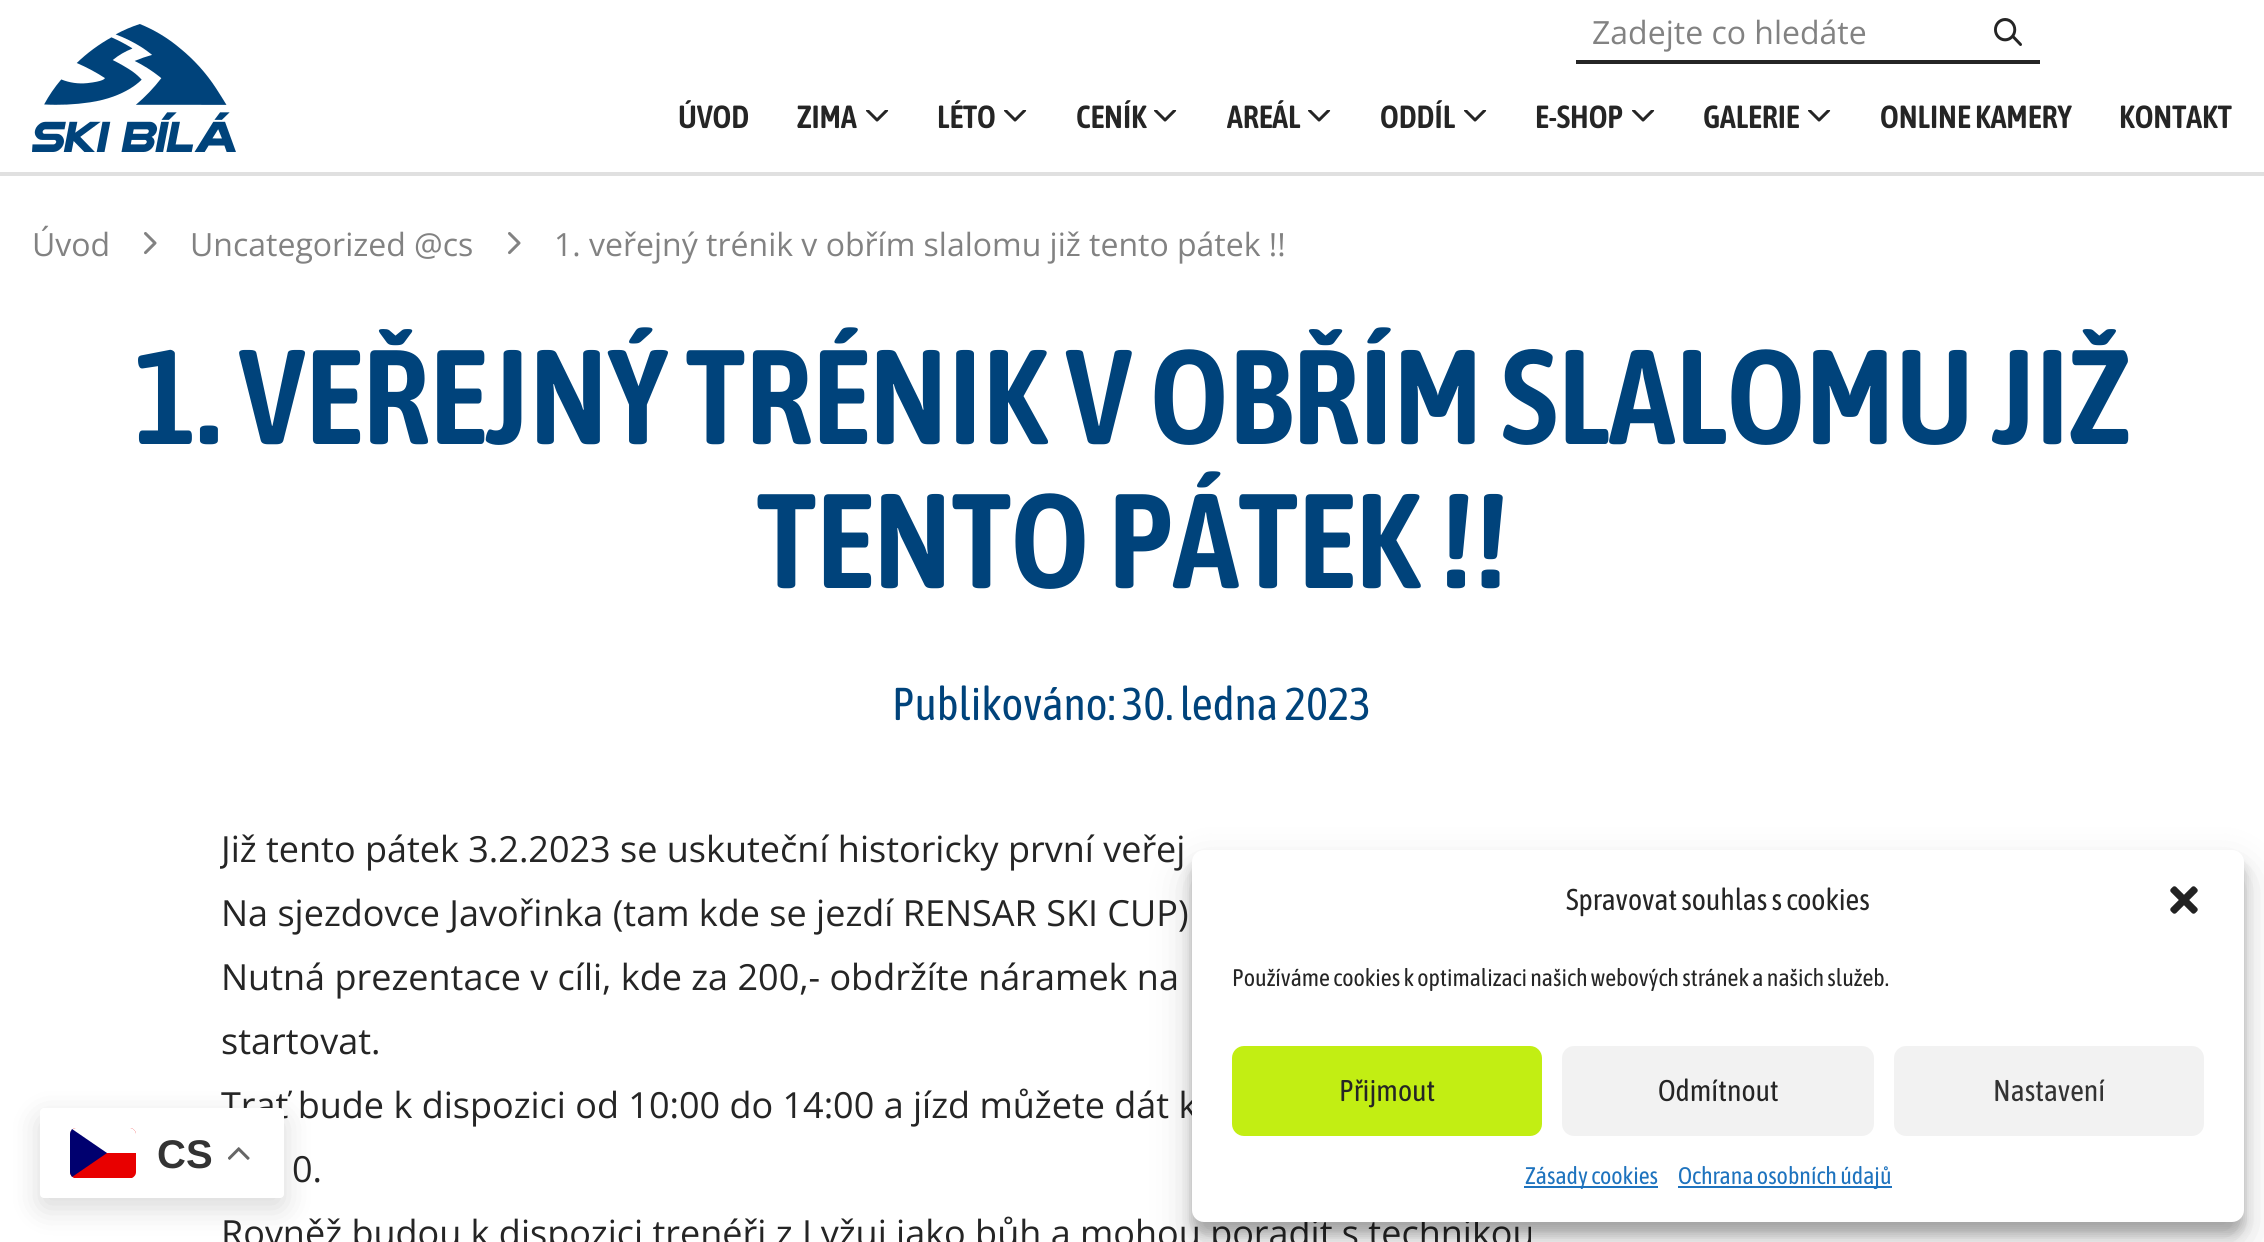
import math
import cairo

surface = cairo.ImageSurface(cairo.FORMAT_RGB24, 2264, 1242)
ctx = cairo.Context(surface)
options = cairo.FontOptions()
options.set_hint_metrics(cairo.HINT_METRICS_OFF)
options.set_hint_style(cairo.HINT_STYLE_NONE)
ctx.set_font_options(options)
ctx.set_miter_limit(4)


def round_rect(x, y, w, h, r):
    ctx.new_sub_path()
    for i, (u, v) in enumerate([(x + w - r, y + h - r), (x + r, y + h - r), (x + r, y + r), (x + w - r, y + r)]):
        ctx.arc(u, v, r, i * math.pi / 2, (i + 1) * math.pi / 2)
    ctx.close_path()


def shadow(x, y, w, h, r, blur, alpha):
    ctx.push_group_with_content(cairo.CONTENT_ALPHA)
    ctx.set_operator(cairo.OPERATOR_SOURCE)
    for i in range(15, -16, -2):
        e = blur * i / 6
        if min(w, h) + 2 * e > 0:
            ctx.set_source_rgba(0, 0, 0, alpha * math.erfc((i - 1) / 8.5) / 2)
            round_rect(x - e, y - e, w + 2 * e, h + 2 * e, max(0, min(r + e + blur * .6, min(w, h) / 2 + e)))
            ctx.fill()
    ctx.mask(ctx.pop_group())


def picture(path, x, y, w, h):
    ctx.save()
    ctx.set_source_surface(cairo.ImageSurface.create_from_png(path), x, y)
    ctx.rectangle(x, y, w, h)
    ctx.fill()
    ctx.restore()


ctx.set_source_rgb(1, 1, 1)
ctx.paint()
picture("img1.png", 32, 24, 204, 128)
ctx.set_source_rgb(0.145, 0.145, 0.145)
ctx.rectangle(1576, 60, 464, 4)
ctx.fill()
ctx.select_font_face("Open Sans")
ctx.set_font_size(32)
ctx.set_source_rgb(0.51, 0.51, 0.51)
ctx.move_to(1592, 44)
ctx.show_text("Zadejte co hledáte")
picture("img2.png", 1994, 18, 28, 28)
ctx.select_font_face("Asap Condensed SemiBold")
ctx.set_source_rgb(0.145, 0.145, 0.145)
ctx.move_to(678, 128)
ctx.show_text("ÚVOD")
ctx.move_to(797, 128)
ctx.show_text("ZIMA")
picture("img3.png", 866, 110, 23, 12)
ctx.move_to(937, 128)
ctx.show_text("LÉTO")
picture("img3.png", 1004, 110, 23, 12)
ctx.move_to(1076, 128)
ctx.show_text("CENÍK")
picture("img3.png", 1154, 110, 23, 12)
ctx.move_to(1227, 128)
ctx.show_text("AREÁL")
picture("img3.png", 1308, 110, 23, 12)
ctx.move_to(1380, 128)
ctx.show_text("ODDÍL")
picture("img3.png", 1464, 110, 23, 12)
ctx.move_to(1535, 128)
ctx.show_text("E-SHOP")
picture("img3.png", 1632, 110, 23, 12)
ctx.move_to(1703, 128)
ctx.show_text("GALERIE")
picture("img3.png", 1808, 110, 23, 12)
ctx.move_to(1880, 128)
ctx.show_text("ONLINE KAMERY")
ctx.move_to(2119, 128)
ctx.show_text("KONTAKT")
ctx.set_source_rgb(0.878, 0.878, 0.878)
ctx.rectangle(0, 172, 2264, 4)
ctx.fill()
ctx.select_font_face("Open Sans")
ctx.set_source_rgb(0.51, 0.51, 0.51)
ctx.move_to(32, 256)
ctx.show_text("Úvod")
picture("img4.png", 144, 232, 13, 23)
ctx.move_to(190, 256)
ctx.show_text("Uncategorized @cs")
picture("img4.png", 508, 232, 13, 23)
ctx.move_to(554, 256)
ctx.show_text("1. veřejný trénik v obřím slalomu již tento pátek !!")
ctx.select_font_face("Asap Condensed SemiBold")
ctx.set_font_size(134)
ctx.set_source_rgb(0, 0.263, 0.482)
ctx.move_to(134, 444)
ctx.show_text("1. VEŘEJNÝ TRÉNIK V OBŘÍM SLALOMU JIŽ")
ctx.move_to(757, 588)
ctx.show_text("TENTO PÁTEK !!")
ctx.select_font_face("Asap Condensed")
ctx.set_font_size(46)
ctx.move_to(892, 720)
ctx.show_text("Publikováno: 30. ledna 2023")
ctx.save()
ctx.rectangle(220, 800, 1824, 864)
ctx.clip()
ctx.select_font_face("Open Sans")
ctx.set_font_size(36)
ctx.set_source_rgb(0.145, 0.145, 0.145)
ctx.move_to(221, 862)
ctx.show_text("Již tento pátek 3.2.2023 se uskuteční historicky první veřej")
ctx.restore()
ctx.select_font_face("Open Sans")
ctx.set_font_size(36)
ctx.set_source_rgb(0.145, 0.145, 0.145)
ctx.move_to(221, 926)
ctx.show_text("Na sjezdovce Javořinka (tam kde se jezdí RENSAR SKI CUP)")
ctx.move_to(221, 990)
ctx.show_text("Nutná prezentace v cíli, kde za 200,- obdržíte náramek na")
ctx.move_to(221, 1054)
ctx.show_text("startovat.")
ctx.move_to(221, 1118)
ctx.show_text("Trať bude k dispozici od 10:00 do 14:00 a jízd můžete dát k")
ctx.move_to(292, 1182)
ctx.show_text("0.")
ctx.move_to(221, 1246)
ctx.show_text("Rovněž budou k dispozici trenéři z Lyžuj jako bůh a mohou poradit s technikou")
ctx.set_source_rgb(0, 0, 0)
shadow(40, 1118, 244, 90, 4, 15, 0.15)
ctx.set_source_rgb(1, 1, 1)
round_rect(40, 1108, 244, 90, 4)
ctx.fill()
ctx.set_source_rgb(0.91, 0, 0)
ctx.new_path()
ctx.move_to(76, 1128)
ctx.line_to(130, 1128)
ctx.curve_to(133, 1128, 136, 1131, 136, 1134)
ctx.line_to(136, 1172)
ctx.curve_to(136, 1175, 134, 1177, 132, 1178)
ctx.line_to(74, 1178)
ctx.curve_to(72, 1177, 70, 1175, 70, 1172)
ctx.line_to(70, 1134)
ctx.curve_to(70, 1131, 73, 1128, 76, 1128)
ctx.close_path()
ctx.fill()
ctx.set_source_rgb(1, 1, 1)
ctx.new_path()
ctx.move_to(76, 1128)
ctx.curve_to(73, 1128, 70, 1131, 70, 1134)
ctx.line_to(70, 1153)
ctx.line_to(136, 1153)
ctx.line_to(136, 1134)
ctx.curve_to(136, 1131, 133, 1128, 130, 1128)
ctx.close_path()
ctx.fill()
ctx.set_source_rgb(0, 0, 0.435)
ctx.new_path()
ctx.move_to(72, 1129)
ctx.line_to(107, 1153)
ctx.line_to(72, 1177)
ctx.curve_to(71, 1175, 70, 1174, 70, 1172)
ctx.line_to(70, 1134)
ctx.curve_to(70, 1132, 71, 1131, 72, 1129)
ctx.close_path()
ctx.fill()
ctx.select_font_face("Liberation Sans", cairo.FONT_SLANT_NORMAL, cairo.FONT_WEIGHT_BOLD)
ctx.set_font_size(40)
ctx.set_source_rgb(0.2, 0.2, 0.2)
ctx.move_to(157, 1168)
ctx.show_text("CS")
picture("img5.png", 228, 1147, 22, 13)
ctx.set_source_rgb(0, 0, 0)
shadow(1192, 862, 1052, 372, 12, 6, 0.23)
shadow(1192, 870, 1052, 372, 12, 20, 0.19)
ctx.set_source_rgb(1, 1, 1)
round_rect(1192, 850, 1052, 372, 12)
ctx.fill()
ctx.select_font_face("Asap Condensed")
ctx.set_font_size(30)
ctx.set_source_rgb(0.145, 0.145, 0.145)
ctx.move_to(1566, 910)
ctx.show_text("Spravovat souhlas s cookies")
picture("img6.png", 2170, 886, 28, 28)
ctx.set_font_size(24)
ctx.move_to(1232, 986)
ctx.show_text("Používáme cookies k optimalizaci našich webových stránek a našich služeb.")
ctx.set_source_rgb(0.761, 0.933, 0.075)
round_rect(1233, 1047, 308, 88, 11)
ctx.fill_preserve()
ctx.stroke()
ctx.set_font_size(30)
ctx.set_source_rgb(0.145, 0.145, 0.145)
ctx.move_to(1339, 1101)
ctx.show_text("Přijmout")
ctx.set_source_rgb(0.949, 0.949, 0.949)
round_rect(1563, 1047, 310, 88, 11)
ctx.fill_preserve()
ctx.stroke()
ctx.set_source_rgb(0.145, 0.145, 0.145)
ctx.move_to(1658, 1101)
ctx.show_text("Odmítnout")
ctx.set_source_rgb(0.949, 0.949, 0.949)
round_rect(1895, 1047, 308, 88, 11)
ctx.fill_preserve()
ctx.stroke()
ctx.set_source_rgb(0.2, 0.2, 0.2)
ctx.move_to(1993, 1101)
ctx.show_text("Nastavení")
ctx.set_source_rgb(0.118, 0.451, 0.745)
ctx.rectangle(1524, 1186, 134, 2)
ctx.fill()
ctx.set_font_size(24)
ctx.move_to(1525, 1184)
ctx.show_text("Zásady cookies")
ctx.rectangle(1678, 1186, 214, 2)
ctx.fill()
ctx.move_to(1678, 1184)
ctx.show_text("Ochrana osobních údajů")
surface.write_to_png("page.png")
